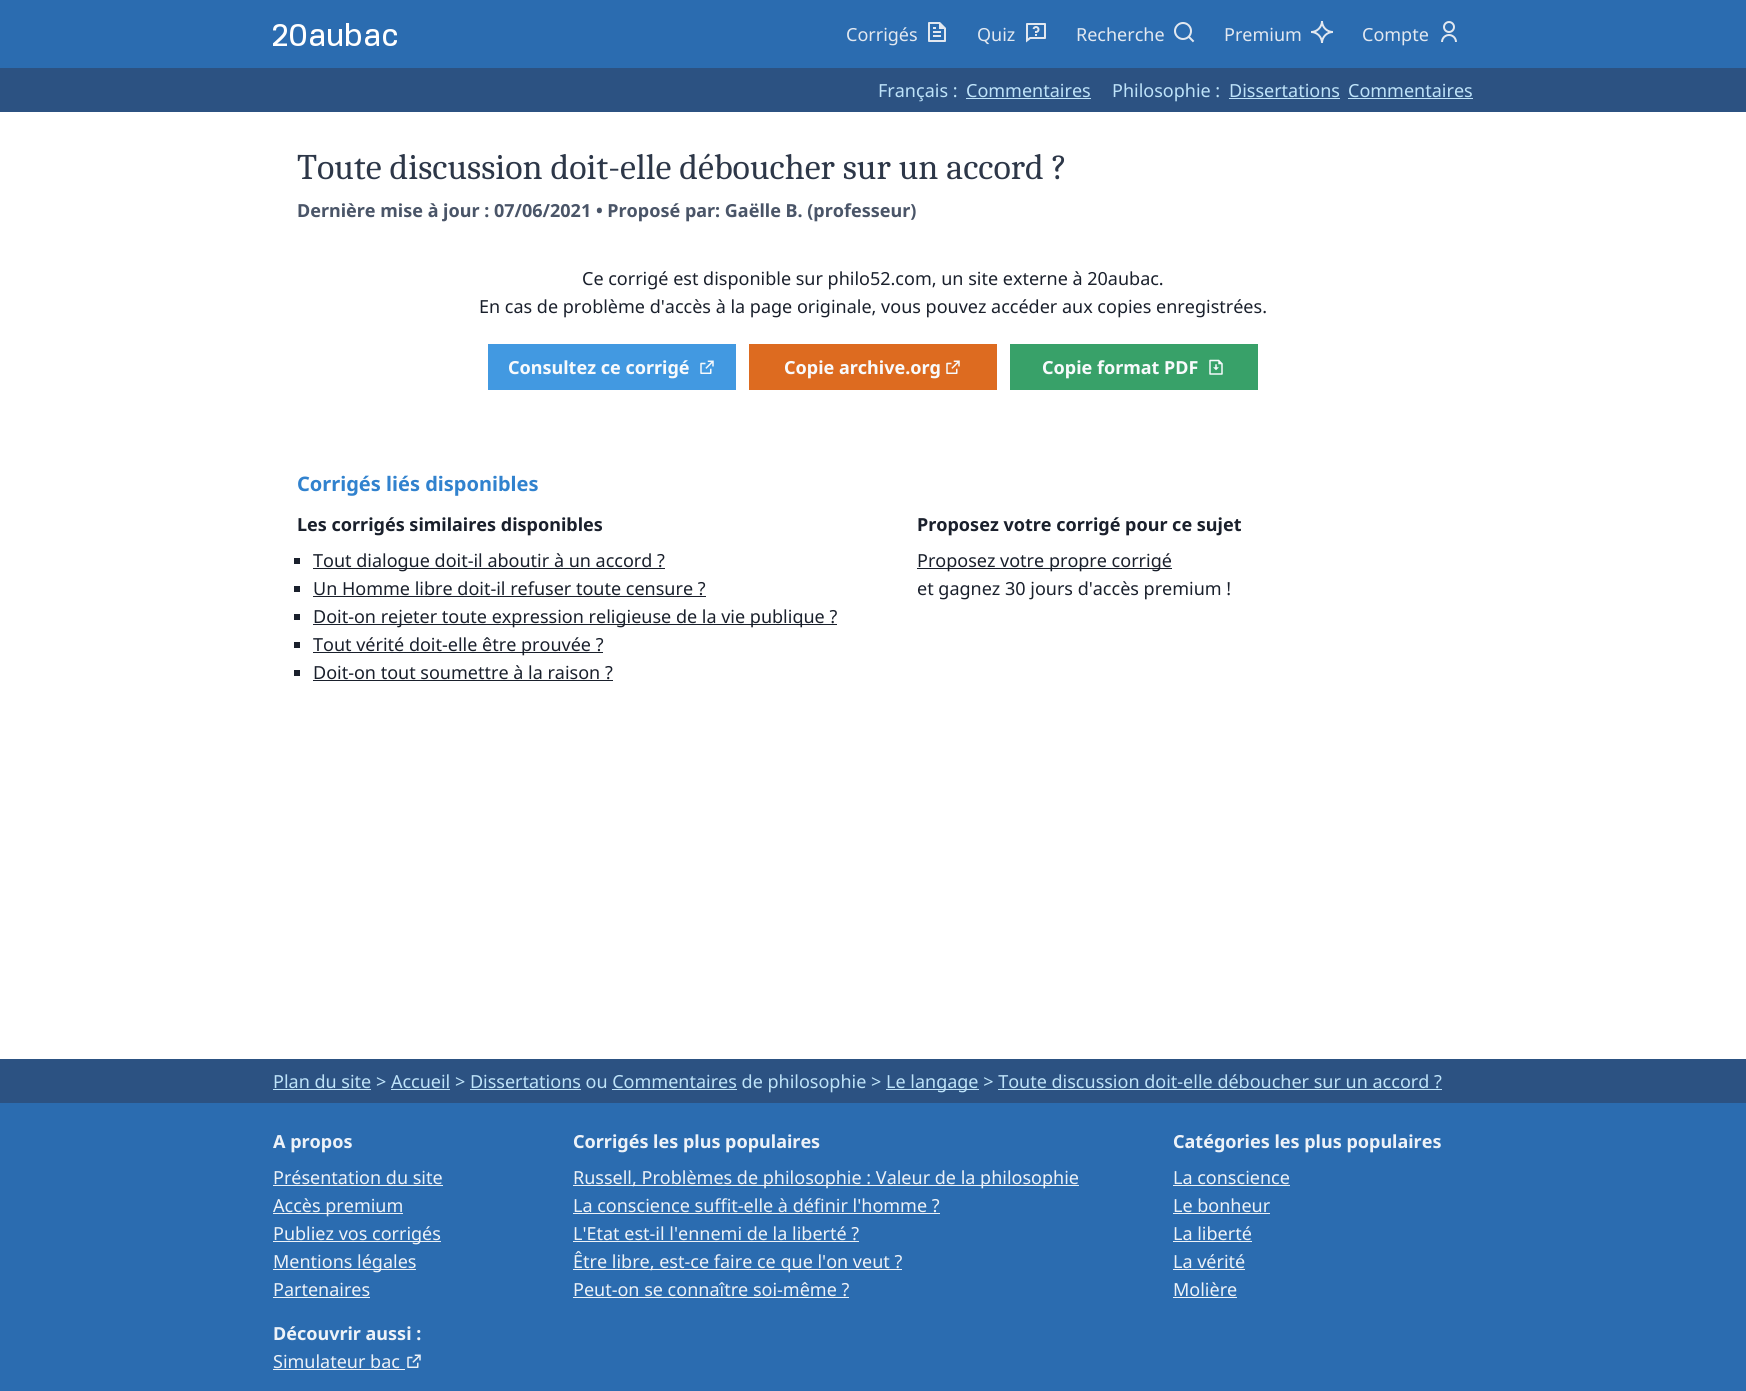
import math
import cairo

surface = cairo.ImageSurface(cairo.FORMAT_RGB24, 1746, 1391)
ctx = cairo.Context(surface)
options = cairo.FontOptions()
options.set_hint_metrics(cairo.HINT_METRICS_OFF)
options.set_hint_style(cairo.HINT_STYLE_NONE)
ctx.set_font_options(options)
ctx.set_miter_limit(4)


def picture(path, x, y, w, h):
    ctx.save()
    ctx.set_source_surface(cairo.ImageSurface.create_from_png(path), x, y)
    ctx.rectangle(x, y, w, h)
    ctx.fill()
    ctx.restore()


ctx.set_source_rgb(1, 1, 1)
ctx.paint()
ctx.set_source_rgb(0.169, 0.424, 0.69)
ctx.rectangle(0, 0, 1746, 68)
ctx.fill()
picture("img1.png", 273, 23, 124, 23)
ctx.select_font_face("Noto Sans")
ctx.set_font_size(18)
ctx.set_source_rgb(0.886, 0.91, 0.941)
ctx.move_to(846, 41)
ctx.show_text("Corrigés")
picture("img2.png", 928, 22, 18, 20)
ctx.move_to(977, 41)
ctx.show_text("Quiz")
picture("img3.png", 1026, 23, 20, 20)
ctx.move_to(1076, 41)
ctx.show_text("Recherche")
picture("img4.png", 1174, 22, 21, 21)
ctx.move_to(1224, 41)
ctx.show_text("Premium")
picture("img5.png", 1311, 21, 22, 22)
ctx.move_to(1362, 41)
ctx.show_text("Compte")
picture("img6.png", 1441, 21, 16, 21)
ctx.set_source_rgb(0.173, 0.322, 0.51)
ctx.rectangle(0, 68, 1746, 44)
ctx.fill()
ctx.set_source_rgb(0.745, 0.89, 0.973)
ctx.move_to(878, 97)
ctx.show_text("Français :")
ctx.move_to(966, 97)
ctx.show_text("Commentaires")
ctx.rectangle(966, 98, 125, 1)
ctx.fill()
ctx.move_to(1112, 97)
ctx.show_text("Philosophie :")
ctx.move_to(1229, 97)
ctx.show_text("Dissertations")
ctx.rectangle(1229, 98, 111, 1)
ctx.fill()
ctx.move_to(1348, 97)
ctx.show_text("Commentaires")
ctx.rectangle(1348, 98, 125, 1)
ctx.fill()
ctx.select_font_face("Caladea")
ctx.set_font_size(36)
ctx.set_source_rgb(0.176, 0.216, 0.282)
ctx.move_to(297, 179)
ctx.show_text("Toute discussion doit-elle déboucher sur un accord ?")
ctx.select_font_face("Noto Sans", cairo.FONT_SLANT_NORMAL, cairo.FONT_WEIGHT_BOLD)
ctx.set_font_size(18)
ctx.set_source_rgb(0.29, 0.333, 0.408)
ctx.move_to(297, 217)
ctx.show_text("Dernière mise à jour : 07/06/2021 • Proposé par: Gaëlle B. (professeur)")
ctx.select_font_face("Noto Sans")
ctx.set_source_rgb(0.102, 0.125, 0.173)
ctx.move_to(582, 285)
ctx.show_text("Ce corrigé est disponible sur philo52.com, un site externe à 20aubac.")
ctx.move_to(479, 313)
ctx.show_text("En cas de problème d'accès à la page originale, vous pouvez accéder aux copies enregistrées.")
ctx.set_source_rgb(0.259, 0.6, 0.882)
ctx.rectangle(488, 344, 248, 46)
ctx.fill()
ctx.select_font_face("Noto Sans", cairo.FONT_SLANT_NORMAL, cairo.FONT_WEIGHT_BOLD)
ctx.set_source_rgb(0.969, 0.98, 0.988)
ctx.move_to(508, 374)
ctx.show_text("Consultez ce corrigé")
picture("img7.png", 700, 360, 14, 14)
ctx.set_source_rgb(0.867, 0.42, 0.125)
ctx.rectangle(749, 344, 248, 46)
ctx.fill()
ctx.set_source_rgb(0.969, 0.98, 0.988)
ctx.move_to(784, 374)
ctx.show_text("Copie archive.org")
picture("img8.png", 946, 360, 14, 14)
ctx.set_source_rgb(0.22, 0.631, 0.412)
ctx.rectangle(1010, 344, 248, 46)
ctx.fill()
ctx.set_source_rgb(0.969, 0.98, 0.988)
ctx.move_to(1042, 374)
ctx.show_text("Copie format PDF")
picture("img9.png", 1209, 359, 14, 16)
ctx.set_font_size(20)
ctx.set_source_rgb(0.192, 0.51, 0.808)
ctx.move_to(297, 491)
ctx.show_text("Corrigés liés disponibles")
ctx.set_font_size(18)
ctx.set_source_rgb(0.102, 0.125, 0.173)
ctx.move_to(297, 531)
ctx.show_text("Les corrigés similaires disponibles")
ctx.rectangle(294, 558, 6, 6)
ctx.fill()
ctx.rectangle(313, 568, 352, 1)
ctx.fill()
ctx.select_font_face("Noto Sans")
ctx.move_to(313, 567)
ctx.show_text("Tout dialogue doit-il aboutir à un accord ?")
ctx.rectangle(294, 586, 6, 6)
ctx.fill()
ctx.move_to(313, 595)
ctx.show_text("Un Homme libre doit-il refuser toute censure ?")
ctx.rectangle(313, 596, 393, 1)
ctx.fill()
ctx.rectangle(294, 614, 6, 6)
ctx.fill()
ctx.rectangle(313, 624, 524, 1)
ctx.fill()
ctx.move_to(313, 623)
ctx.show_text("Doit-on rejeter toute expression religieuse de la vie publique ?")
ctx.rectangle(294, 642, 6, 6)
ctx.fill()
ctx.rectangle(313, 652, 290, 1)
ctx.fill()
ctx.move_to(313, 651)
ctx.show_text("Tout vérité doit-elle être prouvée ?")
ctx.rectangle(294, 670, 6, 6)
ctx.fill()
ctx.move_to(313, 679)
ctx.show_text("Doit-on tout soumettre à la raison ?")
ctx.rectangle(313, 680, 300, 1)
ctx.fill()
ctx.select_font_face("Noto Sans", cairo.FONT_SLANT_NORMAL, cairo.FONT_WEIGHT_BOLD)
ctx.move_to(917, 531)
ctx.show_text("Proposez votre corrigé pour ce sujet")
ctx.rectangle(917, 568, 255, 1)
ctx.fill()
ctx.select_font_face("Noto Sans")
ctx.move_to(917, 567)
ctx.show_text("Proposez votre propre corrigé")
ctx.move_to(917, 595)
ctx.show_text("et gagnez 30 jours d'accès premium !")
ctx.set_source_rgb(0.173, 0.322, 0.51)
ctx.rectangle(0, 1059, 1746, 44)
ctx.fill()
ctx.set_source_rgb(0.745, 0.89, 0.973)
ctx.rectangle(273, 1089, 98, 1)
ctx.fill()
ctx.move_to(273, 1088)
ctx.show_text("Plan du site > Accueil > Dissertations ou Commentaires de philosophie >")
ctx.rectangle(886, 1089, 93, 1)
ctx.fill()
ctx.move_to(886, 1088)
ctx.show_text("Le langage > Toute discussion doit-elle déboucher sur un accord ?")
ctx.rectangle(391, 1089, 59, 1)
ctx.fill()
ctx.rectangle(470, 1089, 111, 1)
ctx.fill()
ctx.rectangle(612, 1089, 125, 1)
ctx.fill()
ctx.rectangle(998, 1089, 444, 1)
ctx.fill()
ctx.set_source_rgb(0.169, 0.424, 0.69)
ctx.rectangle(0, 1103, 1746, 288)
ctx.fill()
ctx.select_font_face("Noto Sans", cairo.FONT_SLANT_NORMAL, cairo.FONT_WEIGHT_BOLD)
ctx.set_source_rgb(0.929, 0.949, 0.969)
ctx.move_to(273, 1148)
ctx.show_text("A propos")
ctx.select_font_face("Noto Sans")
ctx.move_to(273, 1184)
ctx.show_text("Présentation du site")
ctx.rectangle(273, 1185, 170, 1)
ctx.fill()
ctx.rectangle(273, 1213, 130, 1)
ctx.fill()
ctx.move_to(273, 1212)
ctx.show_text("Accès premium")
ctx.rectangle(273, 1241, 168, 1)
ctx.fill()
ctx.move_to(273, 1240)
ctx.show_text("Publiez vos corrigés")
ctx.rectangle(273, 1269, 143, 1)
ctx.fill()
ctx.move_to(273, 1268)
ctx.show_text("Mentions légales")
ctx.move_to(273, 1296)
ctx.show_text("Partenaires")
ctx.rectangle(273, 1297, 97, 1)
ctx.fill()
ctx.select_font_face("Noto Sans", cairo.FONT_SLANT_NORMAL, cairo.FONT_WEIGHT_BOLD)
ctx.move_to(273, 1340)
ctx.show_text("Découvrir aussi :")
ctx.select_font_face("Noto Sans")
ctx.move_to(273, 1368)
ctx.show_text("Simulateur bac")
ctx.rectangle(273, 1369, 132, 1)
ctx.fill()
picture("img10.png", 407, 1354, 14, 14)
ctx.select_font_face("Noto Sans", cairo.FONT_SLANT_NORMAL, cairo.FONT_WEIGHT_BOLD)
ctx.move_to(573, 1148)
ctx.show_text("Corrigés les plus populaires")
ctx.rectangle(573, 1185, 506, 1)
ctx.fill()
ctx.select_font_face("Noto Sans")
ctx.move_to(573, 1184)
ctx.show_text("Russell, Problèmes de philosophie : Valeur de la philosophie")
ctx.move_to(573, 1212)
ctx.show_text("La conscience suffit-elle à définir l'homme ?")
ctx.rectangle(573, 1213, 367, 1)
ctx.fill()
ctx.move_to(573, 1240)
ctx.show_text("L'Etat est-il l'ennemi de la liberté ?")
ctx.rectangle(573, 1241, 286, 1)
ctx.fill()
ctx.rectangle(573, 1269, 329, 1)
ctx.fill()
ctx.move_to(573, 1268)
ctx.show_text("Être libre, est-ce faire ce que l'on veut ?")
ctx.move_to(573, 1296)
ctx.show_text("Peut-on se connaître soi-même ?")
ctx.rectangle(573, 1297, 276, 1)
ctx.fill()
ctx.select_font_face("Noto Sans", cairo.FONT_SLANT_NORMAL, cairo.FONT_WEIGHT_BOLD)
ctx.move_to(1173, 1148)
ctx.show_text("Catégories les plus populaires")
ctx.select_font_face("Noto Sans")
ctx.move_to(1173, 1184)
ctx.show_text("La conscience")
ctx.rectangle(1173, 1185, 117, 1)
ctx.fill()
ctx.move_to(1173, 1212)
ctx.show_text("Le bonheur")
ctx.rectangle(1173, 1213, 97, 1)
ctx.fill()
ctx.move_to(1173, 1240)
ctx.show_text("La liberté")
ctx.rectangle(1173, 1241, 79, 1)
ctx.fill()
ctx.move_to(1173, 1268)
ctx.show_text("La vérité")
ctx.rectangle(1173, 1269, 72, 1)
ctx.fill()
ctx.move_to(1173, 1296)
ctx.show_text("Molière")
ctx.rectangle(1173, 1297, 64, 1)
ctx.fill()
surface.write_to_png("page.png")
